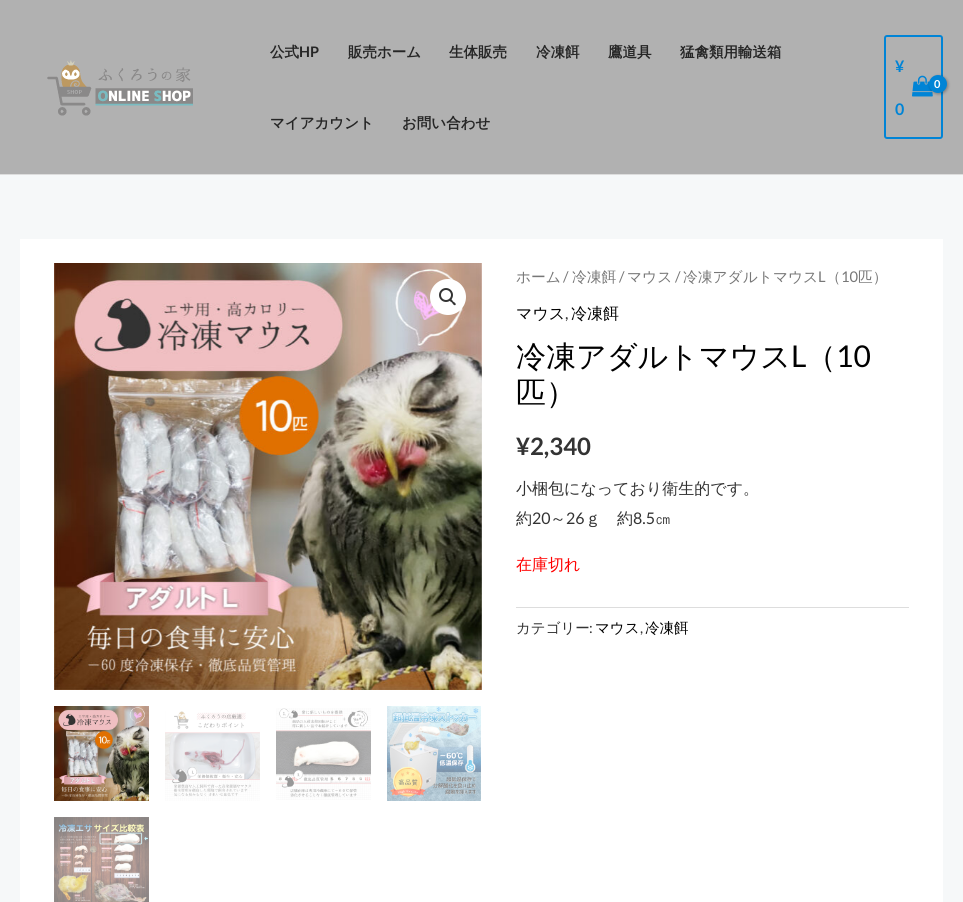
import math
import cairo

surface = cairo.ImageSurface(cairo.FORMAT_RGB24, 963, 902)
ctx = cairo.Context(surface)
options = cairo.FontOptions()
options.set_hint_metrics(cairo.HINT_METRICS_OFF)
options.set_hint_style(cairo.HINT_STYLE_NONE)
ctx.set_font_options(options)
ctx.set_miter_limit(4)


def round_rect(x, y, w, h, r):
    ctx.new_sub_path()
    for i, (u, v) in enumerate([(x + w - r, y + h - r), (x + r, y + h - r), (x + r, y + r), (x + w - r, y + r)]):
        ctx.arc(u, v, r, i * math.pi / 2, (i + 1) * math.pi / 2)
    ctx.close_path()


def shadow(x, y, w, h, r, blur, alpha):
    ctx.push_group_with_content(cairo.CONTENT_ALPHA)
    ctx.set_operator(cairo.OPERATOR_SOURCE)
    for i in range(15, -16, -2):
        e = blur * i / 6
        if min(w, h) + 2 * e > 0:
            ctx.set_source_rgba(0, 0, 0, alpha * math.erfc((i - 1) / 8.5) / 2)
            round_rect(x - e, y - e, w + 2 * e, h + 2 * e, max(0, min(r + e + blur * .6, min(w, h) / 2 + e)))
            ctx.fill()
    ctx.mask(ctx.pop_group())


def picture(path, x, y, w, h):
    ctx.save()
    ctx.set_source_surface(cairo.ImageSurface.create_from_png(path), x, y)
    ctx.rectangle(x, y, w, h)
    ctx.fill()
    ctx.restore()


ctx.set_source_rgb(0.961, 0.969, 0.976)
ctx.paint()
ctx.set_source_rgb(0.694, 0.694, 0.694)
ctx.rectangle(0, 0, 963, 174)
ctx.fill()
ctx.set_source_rgb(0.867, 0.867, 0.867)
ctx.rectangle(0, 174, 963, 1)
ctx.fill()
picture("img1.png", 47, 60, 146, 56)
ctx.select_font_face("WenQuanYi Zen Hei", cairo.FONT_SLANT_NORMAL, cairo.FONT_WEIGHT_BOLD)
ctx.set_font_size(14.5)
ctx.set_source_rgb(0.149, 0.149, 0.149)
ctx.move_to(270, 57)
ctx.show_text("公式")
ctx.select_font_face("Lato", cairo.FONT_SLANT_NORMAL, cairo.FONT_WEIGHT_BOLD)
ctx.move_to(299, 57)
ctx.show_text("HP")
ctx.select_font_face("WenQuanYi Zen Hei", cairo.FONT_SLANT_NORMAL, cairo.FONT_WEIGHT_BOLD)
ctx.move_to(348, 57)
ctx.show_text("販売ホーム")
ctx.move_to(449, 57)
ctx.show_text("生体販売")
ctx.move_to(536, 57)
ctx.show_text("冷凍餌")
ctx.move_to(608, 57)
ctx.show_text("鷹道具")
ctx.move_to(680, 57)
ctx.show_text("猛禽類用輸送箱")
ctx.move_to(270, 128)
ctx.show_text("マイアカウント")
ctx.move_to(402, 128)
ctx.show_text("お問い合わせ")
round_rect(885, 36, 57, 102, 2)
ctx.set_source_rgb(0, 0.518, 0.839)
ctx.stroke()
ctx.select_font_face("Lato", cairo.FONT_SLANT_NORMAL, cairo.FONT_WEIGHT_BOLD)
ctx.set_font_size(16)
ctx.move_to(895, 72)
ctx.show_text("¥")
ctx.move_to(895, 115)
ctx.show_text("0")
picture("img2.png", 912, 75, 21, 22)
ctx.set_source_rgb(0, 0, 0)
shadow(930, 76, 18, 18, 9, 1.5, 0.3)
ctx.set_source_rgb(0, 0.518, 0.839)
ctx.arc(938, 84, 9, 0, 2 * math.pi)
ctx.fill()
ctx.set_font_size(11)
ctx.set_source_rgb(1, 1, 1)
ctx.move_to(934, 88)
ctx.show_text("0")
ctx.rectangle(20, 239, 923, 663)
ctx.fill()
picture("img3.png", 54, 263, 428, 427)
ctx.arc(448, 297, 18, 0, 2 * math.pi)
ctx.fill()
ctx.arc(446, 295, 6, 0, 2 * math.pi)
ctx.set_source_rgb(0.2, 0.2, 0.2)
ctx.stroke()
ctx.new_path()
ctx.move_to(449.5, 299)
ctx.curve_to(451, 298, 452.5, 300.5, 453, 301.5)
ctx.curve_to(454, 302, 456.5, 303.5, 455.5, 305)
ctx.curve_to(454, 306, 452.5, 303.5, 452, 302.5)
ctx.curve_to(451, 302, 448.5, 300.5, 449.5, 299)
ctx.close_path()
ctx.fill()
picture("img4.png", 54, 706, 95, 95)
picture("img5.png", 165, 711, 95, 90)
picture("img6.png", 276, 708, 95, 92)
picture("img7.png", 387, 706, 94, 95)
picture("img8.png", 54, 817, 95, 85)
ctx.select_font_face("WenQuanYi Zen Hei Medium")
ctx.set_font_size(14.75)
ctx.set_source_rgb(0.467, 0.467, 0.467)
ctx.move_to(516, 282)
ctx.show_text("ホーム")
ctx.select_font_face("Lato")
ctx.move_to(563, 282)
ctx.show_text("/")
ctx.select_font_face("WenQuanYi Zen Hei Medium")
ctx.move_to(572, 282)
ctx.show_text("冷凍餌")
ctx.select_font_face("Lato")
ctx.move_to(619, 282)
ctx.show_text("/")
ctx.select_font_face("WenQuanYi Zen Hei Medium")
ctx.move_to(627, 282)
ctx.show_text("マウス")
ctx.select_font_face("Lato")
ctx.move_to(675, 282)
ctx.show_text("/")
ctx.select_font_face("WenQuanYi Zen Hei Medium")
ctx.move_to(683, 282)
ctx.show_text("冷凍アダルトマウス")
ctx.select_font_face("Lato")
ctx.move_to(818, 282)
ctx.show_text("L")
ctx.select_font_face("WenQuanYi Zen Hei Medium")
ctx.move_to(826, 282)
ctx.show_text("（")
ctx.select_font_face("Lato")
ctx.move_to(841, 282)
ctx.show_text("10")
ctx.select_font_face("WenQuanYi Zen Hei Medium")
ctx.move_to(858, 282)
ctx.show_text("匹）")
ctx.set_font_size(16)
ctx.set_source_rgb(0, 0, 0)
ctx.move_to(516, 319)
ctx.show_text("マウス")
ctx.select_font_face("Lato")
ctx.set_source_rgb(0.2, 0.2, 0.2)
ctx.move_to(565, 319)
ctx.show_text(",")
ctx.select_font_face("WenQuanYi Zen Hei Medium")
ctx.set_source_rgb(0, 0, 0)
ctx.move_to(571, 319)
ctx.show_text("冷凍餌")
ctx.set_font_size(30)
ctx.move_to(516, 367)
ctx.show_text("冷凍アダルトマウス")
ctx.select_font_face("Lato")
ctx.move_to(791, 367)
ctx.show_text("L")
ctx.select_font_face("WenQuanYi Zen Hei Medium")
ctx.move_to(806, 367)
ctx.show_text("（")
ctx.select_font_face("Lato")
ctx.move_to(836, 367)
ctx.show_text("10")
ctx.select_font_face("WenQuanYi Zen Hei Medium")
ctx.move_to(516, 403)
ctx.show_text("匹）")
ctx.select_font_face("Lato", cairo.FONT_SLANT_NORMAL, cairo.FONT_WEIGHT_BOLD)
ctx.set_font_size(24)
ctx.set_source_rgb(0.2, 0.2, 0.2)
ctx.move_to(516, 455)
ctx.show_text("¥2,340")
ctx.select_font_face("WenQuanYi Zen Hei Medium")
ctx.set_font_size(16)
ctx.move_to(516, 494)
ctx.show_text("小梱包になっており衛生的です。")
ctx.move_to(516, 524)
ctx.show_text("約")
ctx.select_font_face("Lato")
ctx.move_to(532, 524)
ctx.show_text("20")
ctx.select_font_face("WenQuanYi Zen Hei Medium")
ctx.move_to(550, 524)
ctx.show_text("～")
ctx.select_font_face("Lato")
ctx.move_to(566, 524)
ctx.show_text("26")
ctx.select_font_face("WenQuanYi Zen Hei Medium")
ctx.move_to(585, 524)
ctx.show_text("ｇ　約")
ctx.select_font_face("Lato")
ctx.move_to(633, 524)
ctx.show_text("8.5")
ctx.select_font_face("WenQuanYi Zen Hei Medium")
ctx.move_to(655, 524)
ctx.show_text("㎝")
ctx.set_source_rgb(1, 0, 0)
ctx.move_to(516, 570)
ctx.show_text("在庫切れ")
ctx.set_source_rgb(0.867, 0.867, 0.867)
ctx.rectangle(516, 607, 393, 1)
ctx.fill()
ctx.set_font_size(14.5)
ctx.set_source_rgb(0.2, 0.2, 0.2)
ctx.move_to(516, 633)
ctx.show_text("カテゴリー")
ctx.select_font_face("Lato")
ctx.move_to(589, 633)
ctx.show_text(":")
ctx.select_font_face("WenQuanYi Zen Hei Medium")
ctx.set_source_rgb(0, 0, 0)
ctx.move_to(595, 633)
ctx.show_text("マウス")
ctx.select_font_face("Lato")
ctx.set_source_rgb(0.2, 0.2, 0.2)
ctx.move_to(640, 633)
ctx.show_text(",")
ctx.select_font_face("WenQuanYi Zen Hei Medium")
ctx.set_source_rgb(0, 0, 0)
ctx.move_to(645, 633)
ctx.show_text("冷凍餌")
surface.write_to_png("page.png")
